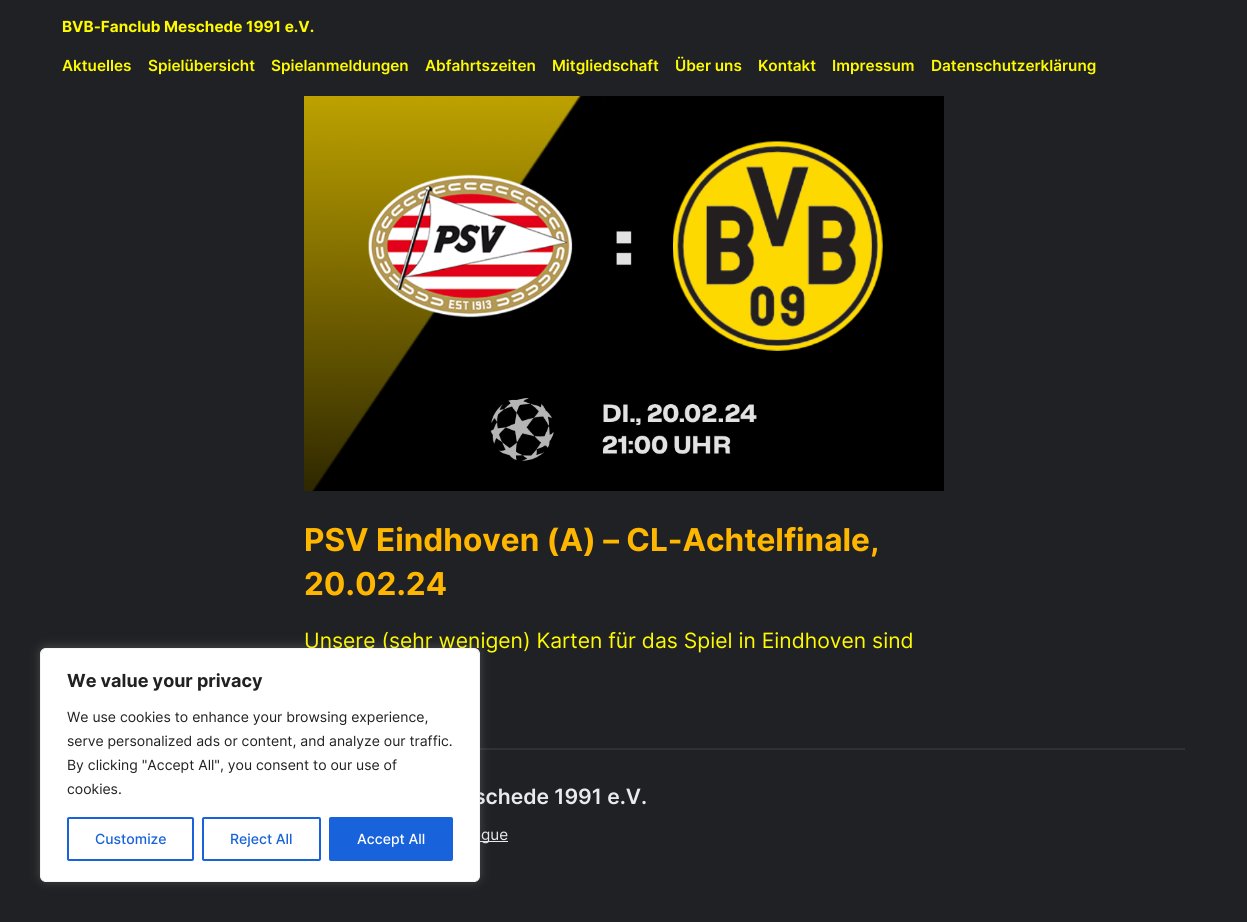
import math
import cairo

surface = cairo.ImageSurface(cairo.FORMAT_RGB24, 1247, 922)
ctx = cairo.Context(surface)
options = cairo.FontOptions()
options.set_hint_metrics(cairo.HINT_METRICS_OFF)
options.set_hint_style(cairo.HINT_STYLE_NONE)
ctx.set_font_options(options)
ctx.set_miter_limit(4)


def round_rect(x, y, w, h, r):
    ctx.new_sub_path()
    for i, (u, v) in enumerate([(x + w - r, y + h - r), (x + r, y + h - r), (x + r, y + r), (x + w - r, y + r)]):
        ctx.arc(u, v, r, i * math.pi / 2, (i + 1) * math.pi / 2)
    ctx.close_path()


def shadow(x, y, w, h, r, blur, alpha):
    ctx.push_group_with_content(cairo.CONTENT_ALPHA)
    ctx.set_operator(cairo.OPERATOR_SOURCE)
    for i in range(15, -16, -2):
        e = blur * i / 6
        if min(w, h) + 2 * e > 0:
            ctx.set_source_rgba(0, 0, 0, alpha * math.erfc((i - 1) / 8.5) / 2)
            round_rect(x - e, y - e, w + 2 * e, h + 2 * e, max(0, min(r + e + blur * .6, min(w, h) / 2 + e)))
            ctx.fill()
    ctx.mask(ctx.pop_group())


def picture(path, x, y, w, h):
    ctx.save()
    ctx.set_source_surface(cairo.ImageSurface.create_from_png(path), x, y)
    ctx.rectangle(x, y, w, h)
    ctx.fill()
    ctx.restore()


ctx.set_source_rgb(0.125, 0.129, 0.141)
ctx.paint()
ctx.select_font_face("Inter", cairo.FONT_SLANT_NORMAL, cairo.FONT_WEIGHT_BOLD)
ctx.set_font_size(15.3)
ctx.set_source_rgb(0.996, 0.98, 0)
ctx.move_to(62, 32)
ctx.show_text("BVB-Fanclub Meschede 1991 e.V.")
ctx.select_font_face("Inter SemiBold")
ctx.move_to(62, 71)
ctx.show_text("Aktuelles")
ctx.move_to(148, 71)
ctx.show_text("Spielübersicht")
ctx.move_to(271, 71)
ctx.show_text("Spielanmeldungen")
ctx.move_to(425, 71)
ctx.show_text("Abfahrtszeiten")
ctx.move_to(552, 71)
ctx.show_text("Mitgliedschaft")
ctx.move_to(675, 71)
ctx.show_text("Über uns")
ctx.move_to(758, 71)
ctx.show_text("Kontakt")
ctx.move_to(832, 71)
ctx.show_text("Impressum")
ctx.move_to(931, 71)
ctx.show_text("Datenschutzerklärung")
picture("img1.png", 304, 96, 640, 395)
ctx.select_font_face("Inter", cairo.FONT_SLANT_NORMAL, cairo.FONT_WEIGHT_BOLD)
ctx.set_font_size(31.5)
ctx.set_source_rgb(1, 0.714, 0)
ctx.move_to(304, 551)
ctx.show_text("PSV Eindhoven (A) – CL-Achtelfinale,")
ctx.move_to(304, 595)
ctx.show_text("20.02.24")
ctx.select_font_face("Inter")
ctx.set_font_size(21.1)
ctx.set_source_rgb(0.996, 0.98, 0)
ctx.move_to(304, 648)
ctx.show_text("Unsere (sehr wenigen) Karten für das Spiel in Eindhoven sind")
ctx.set_source_rgb(0.188, 0.192, 0.204)
ctx.rectangle(480, 748, 705, 2)
ctx.fill()
ctx.select_font_face("Inter SemiBold")
ctx.set_source_rgb(0.91, 0.918, 0.929)
ctx.move_to(474, 804)
ctx.show_text("schede 1991 e.V.")
ctx.rectangle(480, 841, 28, 1)
ctx.fill()
ctx.select_font_face("Inter")
ctx.set_font_size(15.3)
ctx.move_to(481, 840)
ctx.show_text("gue")
ctx.set_source_rgb(0.675, 0.671, 0.671)
shadow(40, 647, 440, 234, 6, 5, 0.3)
ctx.set_source_rgb(1, 1, 1)
round_rect(40.5, 648.5, 439, 233, 5.5)
ctx.fill_preserve()
ctx.set_source_rgb(0.957, 0.957, 0.957)
ctx.set_line_width(1)
ctx.stroke()
ctx.select_font_face("Inter", cairo.FONT_SLANT_NORMAL, cairo.FONT_WEIGHT_BOLD)
ctx.set_font_size(18)
ctx.set_source_rgb(0.129, 0.129, 0.129)
ctx.move_to(67, 687)
ctx.show_text("We value your privacy")
ctx.select_font_face("Inter")
ctx.set_font_size(14)
ctx.move_to(67, 722)
ctx.show_text("We use cookies to enhance your browsing experience,")
ctx.move_to(67, 746)
ctx.show_text("serve personalized ads or content, and analyze our traffic.")
ctx.move_to(67, 770)
ctx.show_text("By clicking \"Accept All\", you consent to our use of")
ctx.move_to(67, 794)
ctx.show_text("cookies.")
round_rect(68, 818, 125, 42, 1)
ctx.set_source_rgb(0.094, 0.388, 0.863)
ctx.set_line_width(2)
ctx.stroke()
ctx.select_font_face("Inter Medium")
ctx.move_to(95, 844)
ctx.show_text("Customize")
round_rect(203, 818, 117, 42, 1)
ctx.stroke()
ctx.move_to(230, 844)
ctx.show_text("Reject All")
round_rect(330, 818, 122, 42, 1)
ctx.fill_preserve()
ctx.stroke()
ctx.set_source_rgb(1, 1, 1)
ctx.move_to(357, 844)
ctx.show_text("Accept All")
surface.write_to_png("page.png")
